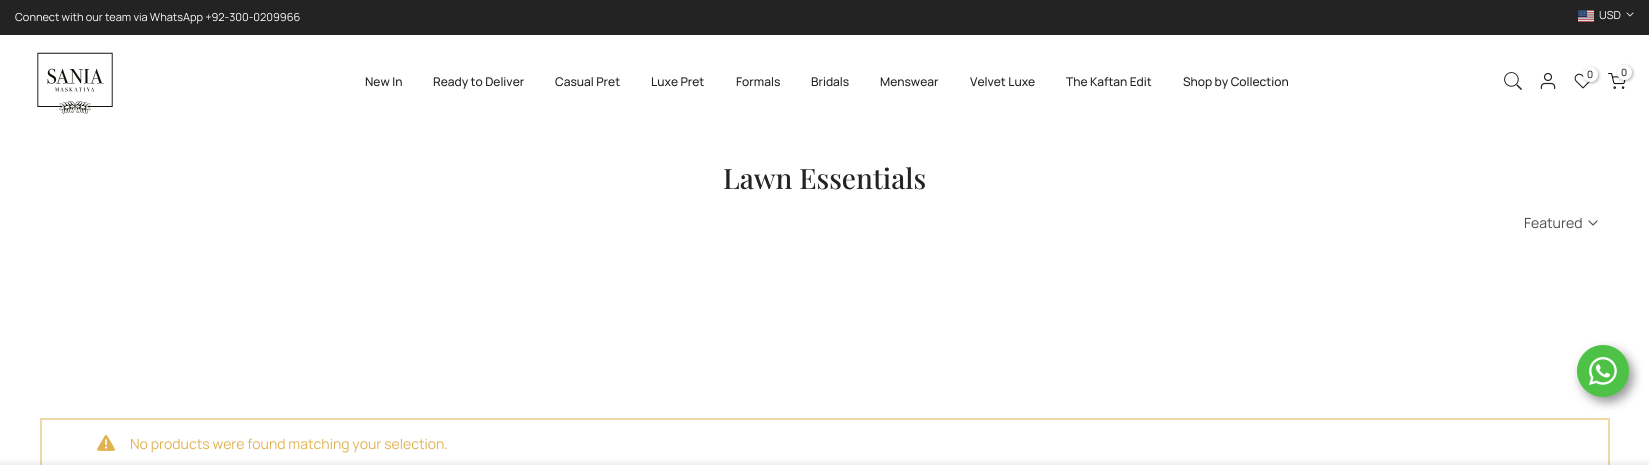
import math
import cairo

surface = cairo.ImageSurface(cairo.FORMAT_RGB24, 1649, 465)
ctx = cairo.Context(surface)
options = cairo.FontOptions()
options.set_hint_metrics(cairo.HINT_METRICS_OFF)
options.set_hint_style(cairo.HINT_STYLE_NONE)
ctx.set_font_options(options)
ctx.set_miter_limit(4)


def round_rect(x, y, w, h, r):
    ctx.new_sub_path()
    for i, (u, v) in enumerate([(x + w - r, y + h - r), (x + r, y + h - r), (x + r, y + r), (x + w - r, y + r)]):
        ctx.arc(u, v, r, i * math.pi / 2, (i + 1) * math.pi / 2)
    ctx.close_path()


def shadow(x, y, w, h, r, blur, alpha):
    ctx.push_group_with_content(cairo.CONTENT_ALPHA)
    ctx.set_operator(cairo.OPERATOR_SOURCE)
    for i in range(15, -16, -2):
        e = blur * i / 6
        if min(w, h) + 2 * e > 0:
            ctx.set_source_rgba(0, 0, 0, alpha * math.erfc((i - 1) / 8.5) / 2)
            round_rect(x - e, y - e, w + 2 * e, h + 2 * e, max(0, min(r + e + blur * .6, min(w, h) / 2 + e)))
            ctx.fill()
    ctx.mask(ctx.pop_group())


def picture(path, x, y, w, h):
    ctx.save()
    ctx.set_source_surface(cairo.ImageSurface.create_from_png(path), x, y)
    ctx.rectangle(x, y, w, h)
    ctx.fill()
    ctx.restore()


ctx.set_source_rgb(1, 1, 1)
ctx.paint()
ctx.set_source_rgb(0.137, 0.137, 0.137)
ctx.rectangle(0, 0, 1649, 35)
ctx.fill()
ctx.select_font_face("Manrope")
ctx.set_font_size(11)
ctx.set_source_rgb(1, 1, 1)
ctx.move_to(15, 21)
ctx.show_text("Connect with our team via WhatsApp +92-300-0209966")
picture("img1.png", 1578, 10, 16, 12)
ctx.move_to(1599, 19)
ctx.show_text("USD")
ctx.new_path()
ctx.move_to(1633, 13)
ctx.line_to(1630, 16)
ctx.line_to(1627, 13)
ctx.set_line_width(0.8)
ctx.set_line_cap(cairo.LINE_CAP_SQUARE)
ctx.stroke()
picture("img2.png", 37, 52, 76, 62)
picture("img3.png", 1504, 72, 18, 18)
picture("img4.png", 1540, 72, 16, 18)
picture("img5.png", 1574, 73, 17, 16)
ctx.set_source_rgb(0, 0, 0)
shadow(1584, 68, 15, 15, 7.5, 1.5, 0.3)
ctx.set_source_rgb(1, 1, 1)
ctx.arc(1590.5, 74.5, 7.5, 0, 2 * math.pi)
ctx.fill()
ctx.set_font_size(10)
ctx.set_source_rgb(0, 0, 0)
ctx.move_to(1587, 78)
ctx.show_text("0")
picture("img6.png", 1608, 73, 18, 16)
ctx.set_source_rgb(0, 0, 0)
shadow(1618, 66, 15, 15, 7.5, 1.5, 0.3)
ctx.set_source_rgb(1, 1, 1)
ctx.arc(1624.5, 72.5, 7.5, 0, 2 * math.pi)
ctx.fill()
ctx.set_source_rgb(0, 0, 0)
ctx.move_to(1621, 76)
ctx.show_text("0")
ctx.select_font_face("Manrope Medium")
ctx.set_font_size(12)
ctx.set_source_rgb(0.133, 0.133, 0.133)
ctx.move_to(365, 86)
ctx.show_text("New In")
ctx.move_to(433, 86)
ctx.show_text("Ready to Deliver")
ctx.move_to(555, 86)
ctx.show_text("Casual Pret")
ctx.move_to(651, 86)
ctx.show_text("Luxe Pret")
ctx.move_to(736, 86)
ctx.show_text("Formals")
ctx.move_to(811, 86)
ctx.show_text("Bridals")
ctx.move_to(880, 86)
ctx.show_text("Menswear")
ctx.move_to(970, 86)
ctx.show_text("Velvet Luxe")
ctx.move_to(1066, 86)
ctx.show_text("The Kaftan Edit")
ctx.move_to(1183, 86)
ctx.show_text("Shop by Collection")
ctx.select_font_face("Playfair Display Medium")
ctx.set_font_size(28)
ctx.move_to(723, 189)
ctx.show_text("Lawn Essentials")
ctx.select_font_face("Manrope")
ctx.set_font_size(14)
ctx.set_source_rgb(0.294, 0.29, 0.29)
ctx.move_to(1524, 228)
ctx.show_text("Featured")
ctx.new_path()
ctx.move_to(1597, 221)
ctx.line_to(1593, 225)
ctx.line_to(1589, 221)
ctx.set_line_width(1.1)
ctx.stroke()
ctx.rectangle(41, 419, 1568, 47)
ctx.set_source_rgb(0.941, 0.851, 0.663)
ctx.set_line_width(2)
ctx.set_line_cap(cairo.LINE_CAP_BUTT)
ctx.stroke()
picture("img7.png", 97, 435, 18, 16)
ctx.set_source_rgb(0.878, 0.698, 0.322)
ctx.move_to(130, 449)
ctx.show_text("No products were found matching your selection.")
ctx.set_source_rgb(0, 0, 0)
shadow(1581, 350, 52, 52, 26, 5, 0.4)
ctx.set_source_rgb(0.302, 0.761, 0.278)
ctx.arc(1603, 371, 26, 0, 2 * math.pi)
ctx.fill()
picture("img8.png", 1589, 357, 28, 28)
ctx.set_source_rgb(0, 0, 0)
shadow(0, 465, 1649, 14, 0, 4.5, 0.14)
surface.write_to_png("page.png")
